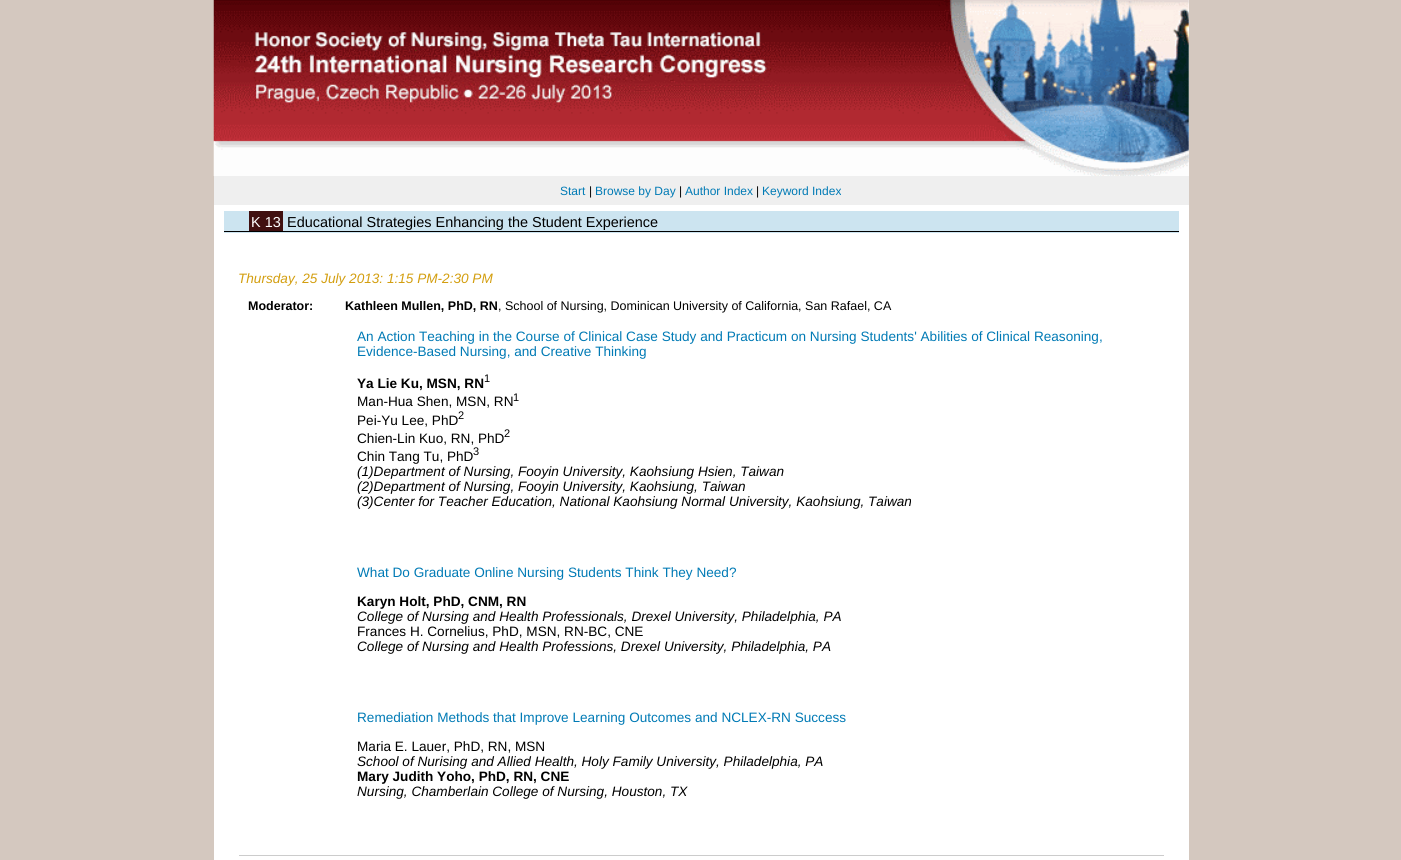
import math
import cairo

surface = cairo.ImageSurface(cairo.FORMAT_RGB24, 1401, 860)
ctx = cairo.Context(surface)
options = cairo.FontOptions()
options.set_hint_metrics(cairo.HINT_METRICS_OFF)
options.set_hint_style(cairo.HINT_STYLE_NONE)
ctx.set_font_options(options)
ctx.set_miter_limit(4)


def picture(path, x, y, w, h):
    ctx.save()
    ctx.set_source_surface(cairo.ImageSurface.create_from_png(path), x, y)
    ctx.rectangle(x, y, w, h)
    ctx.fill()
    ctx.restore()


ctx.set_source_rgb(0.831, 0.784, 0.749)
ctx.paint()
ctx.set_source_rgb(1, 1, 1)
ctx.rectangle(214, 0, 975, 860)
ctx.fill()
picture("img1.png", 213, 0, 976, 176)
ctx.set_source_rgb(0.937, 0.937, 0.937)
ctx.rectangle(214, 176, 975, 29)
ctx.fill()
ctx.select_font_face("Liberation Sans")
ctx.set_font_size(12)
ctx.set_source_rgb(0, 0.478, 0.71)
ctx.move_to(560, 195)
ctx.show_text("Start")
ctx.set_source_rgb(0, 0, 0)
ctx.move_to(589, 195)
ctx.show_text("|")
ctx.set_source_rgb(0, 0.478, 0.71)
ctx.move_to(595, 195)
ctx.show_text("Browse by Day")
ctx.set_source_rgb(0, 0, 0)
ctx.move_to(679, 195)
ctx.show_text("|")
ctx.set_source_rgb(0, 0.478, 0.71)
ctx.move_to(685, 195)
ctx.show_text("Author Index")
ctx.set_source_rgb(0, 0, 0)
ctx.move_to(756, 195)
ctx.show_text("|")
ctx.set_source_rgb(0, 0.478, 0.71)
ctx.move_to(762, 195)
ctx.show_text("Keyword Index")
ctx.set_source_rgb(0.8, 0.894, 0.941)
ctx.rectangle(224, 211, 955, 22)
ctx.fill()
ctx.set_source_rgb(0, 0, 0)
ctx.rectangle(224, 231, 955, 1)
ctx.fill()
ctx.set_source_rgb(0.251, 0.063, 0.063)
ctx.rectangle(249, 211, 34, 20)
ctx.fill()
ctx.set_font_size(14.45)
ctx.set_source_rgb(1, 1, 1)
ctx.move_to(251, 227)
ctx.show_text("K 13")
ctx.set_source_rgb(0, 0, 0)
ctx.move_to(287, 227)
ctx.show_text("Educational Strategies Enhancing the Student Experience")
ctx.select_font_face("Liberation Sans", cairo.FONT_SLANT_ITALIC)
ctx.set_font_size(13.6)
ctx.set_source_rgb(0.827, 0.62, 0.059)
ctx.move_to(238, 283)
ctx.show_text("Thursday, 25 July 2013: 1:15 PM-2:30 PM")
ctx.select_font_face("Liberation Sans", cairo.FONT_SLANT_NORMAL, cairo.FONT_WEIGHT_BOLD)
ctx.set_font_size(12.5)
ctx.set_source_rgb(0, 0, 0)
ctx.move_to(248, 310)
ctx.show_text("Moderator:")
ctx.move_to(345, 310)
ctx.show_text("Kathleen Mullen, PhD, RN")
ctx.select_font_face("Liberation Sans")
ctx.move_to(498, 310)
ctx.show_text(", School of Nursing, Dominican University of California, San Rafael, CA")
ctx.set_font_size(13.6)
ctx.set_source_rgb(0, 0.478, 0.71)
ctx.move_to(357, 341)
ctx.show_text("An Action Teaching in the Course of Clinical Case Study and Practicum on Nursing Students' Abilities of Clinical Reasoning,")
ctx.move_to(357, 356)
ctx.show_text("Evidence-Based Nursing, and Creative Thinking")
ctx.select_font_face("Liberation Sans", cairo.FONT_SLANT_NORMAL, cairo.FONT_WEIGHT_BOLD)
ctx.set_source_rgb(0, 0, 0)
ctx.move_to(357, 388)
ctx.show_text("Ya Lie Ku, MSN, RN")
ctx.select_font_face("Liberation Sans")
ctx.set_font_size(11)
ctx.move_to(484, 382)
ctx.show_text("1")
ctx.set_font_size(13.6)
ctx.move_to(357, 406)
ctx.show_text("Man-Hua Shen, MSN, RN")
ctx.set_font_size(11)
ctx.move_to(513, 401)
ctx.show_text("1")
ctx.set_font_size(13.6)
ctx.move_to(357, 425)
ctx.show_text("Pei-Yu Lee, PhD")
ctx.set_font_size(11)
ctx.move_to(458, 419)
ctx.show_text("2")
ctx.set_font_size(13.6)
ctx.move_to(357, 443)
ctx.show_text("Chien-Lin Kuo, RN, PhD")
ctx.set_font_size(11)
ctx.move_to(504, 437)
ctx.show_text("2")
ctx.set_font_size(13.6)
ctx.move_to(357, 461)
ctx.show_text("Chin Tang Tu, PhD")
ctx.set_font_size(11)
ctx.move_to(473, 455)
ctx.show_text("3")
ctx.select_font_face("Liberation Sans", cairo.FONT_SLANT_ITALIC)
ctx.set_font_size(13.6)
ctx.move_to(357, 476)
ctx.show_text("(1)Department of Nursing, Fooyin University, Kaohsiung Hsien, Taiwan")
ctx.move_to(357, 491)
ctx.show_text("(2)Department of Nursing, Fooyin University, Kaohsiung, Taiwan")
ctx.move_to(357, 506)
ctx.show_text("(3)Center for Teacher Education, National Kaohsiung Normal University, Kaohsiung, Taiwan")
ctx.select_font_face("Liberation Sans")
ctx.set_source_rgb(0, 0.478, 0.71)
ctx.move_to(357, 577)
ctx.show_text("What Do Graduate Online Nursing Students Think They Need?")
ctx.select_font_face("Liberation Sans", cairo.FONT_SLANT_NORMAL, cairo.FONT_WEIGHT_BOLD)
ctx.set_source_rgb(0, 0, 0)
ctx.move_to(357, 606)
ctx.show_text("Karyn Holt, PhD, CNM, RN")
ctx.select_font_face("Liberation Sans", cairo.FONT_SLANT_ITALIC)
ctx.move_to(357, 621)
ctx.show_text("College of Nursing and Health Professionals, Drexel University, Philadelphia, PA")
ctx.select_font_face("Liberation Sans")
ctx.move_to(357, 636)
ctx.show_text("Frances H. Cornelius, PhD, MSN, RN-BC, CNE")
ctx.select_font_face("Liberation Sans", cairo.FONT_SLANT_ITALIC)
ctx.move_to(357, 651)
ctx.show_text("College of Nursing and Health Professions, Drexel University, Philadelphia, PA")
ctx.select_font_face("Liberation Sans")
ctx.set_source_rgb(0, 0.478, 0.71)
ctx.move_to(357, 722)
ctx.show_text("Remediation Methods that Improve Learning Outcomes and NCLEX-RN Success")
ctx.set_source_rgb(0, 0, 0)
ctx.move_to(357, 751)
ctx.show_text("Maria E. Lauer, PhD, RN, MSN")
ctx.select_font_face("Liberation Sans", cairo.FONT_SLANT_ITALIC)
ctx.move_to(357, 766)
ctx.show_text("School of Nurising and Allied Health, Holy Family University, Philadelphia, PA")
ctx.select_font_face("Liberation Sans", cairo.FONT_SLANT_NORMAL, cairo.FONT_WEIGHT_BOLD)
ctx.move_to(357, 781)
ctx.show_text("Mary Judith Yoho, PhD, RN, CNE")
ctx.select_font_face("Liberation Sans", cairo.FONT_SLANT_ITALIC)
ctx.move_to(357, 796)
ctx.show_text("Nursing, Chamberlain College of Nursing, Houston, TX")
ctx.set_source_rgb(0.8, 0.8, 0.8)
ctx.rectangle(239, 855, 925, 1)
ctx.fill()
surface.write_to_png("page.png")
